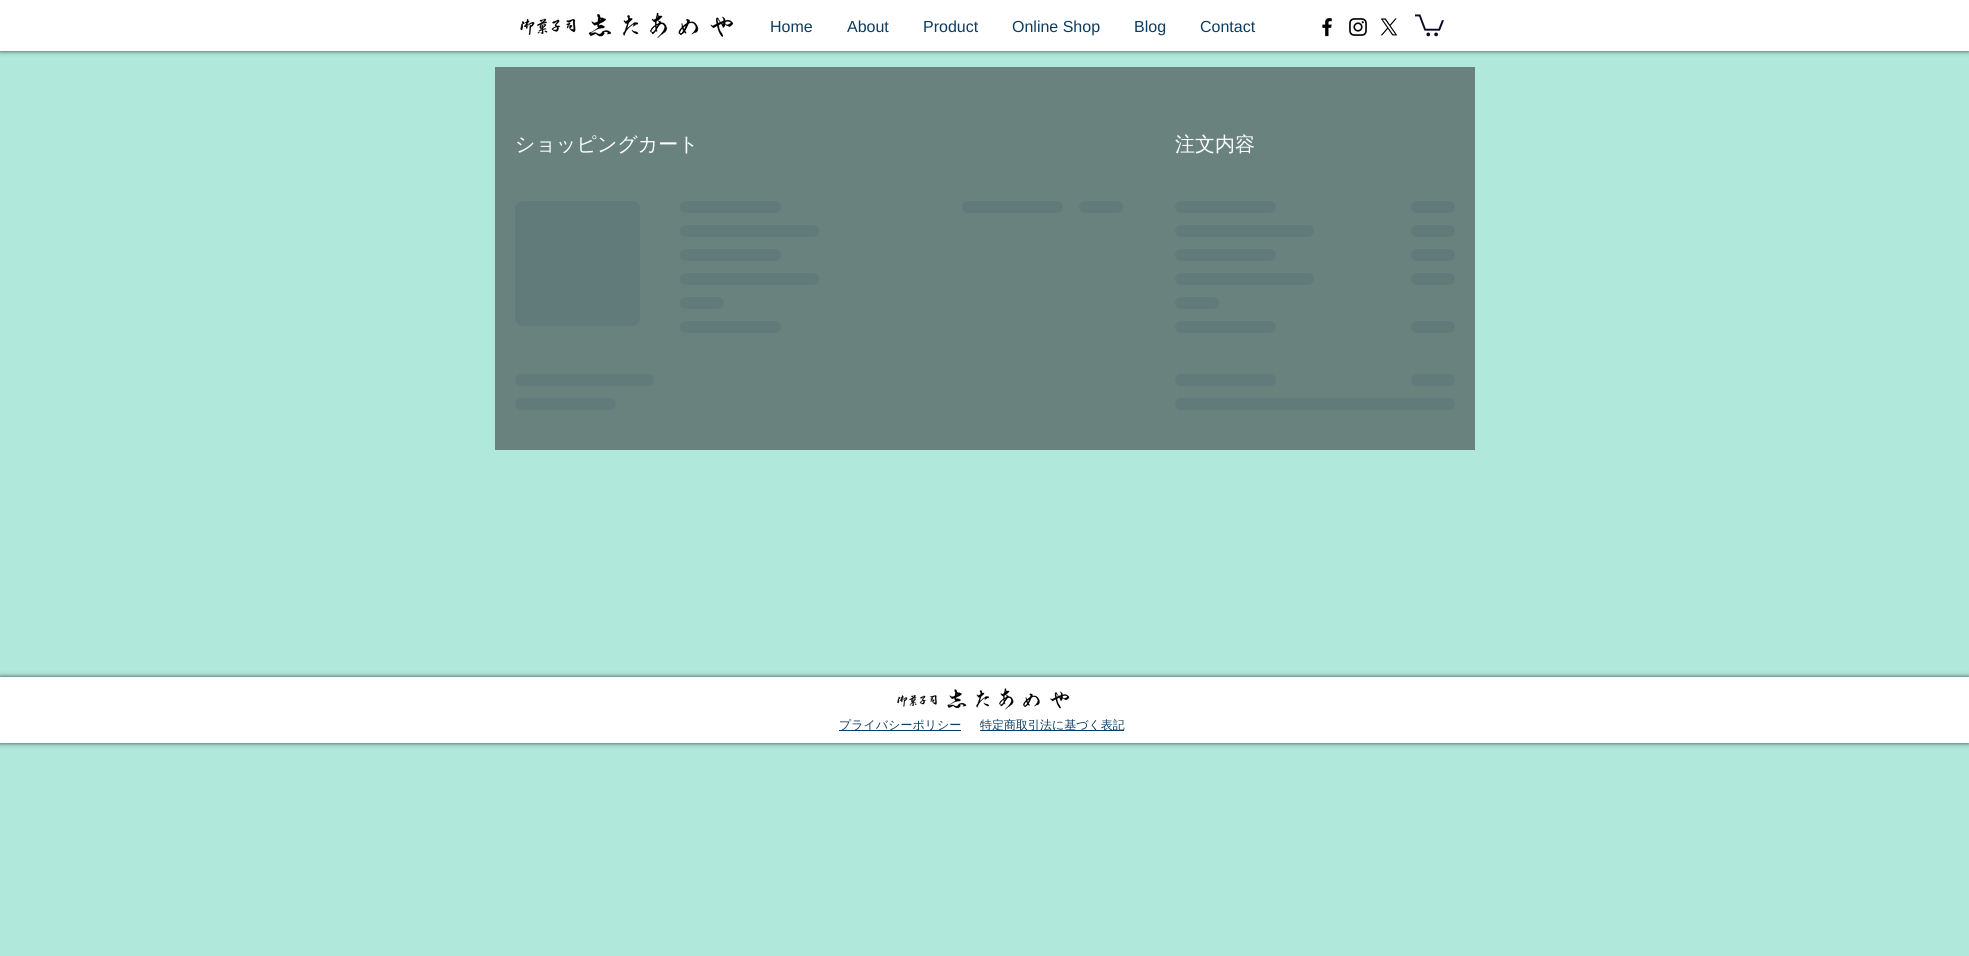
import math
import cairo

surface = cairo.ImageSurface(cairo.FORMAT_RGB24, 1969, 956)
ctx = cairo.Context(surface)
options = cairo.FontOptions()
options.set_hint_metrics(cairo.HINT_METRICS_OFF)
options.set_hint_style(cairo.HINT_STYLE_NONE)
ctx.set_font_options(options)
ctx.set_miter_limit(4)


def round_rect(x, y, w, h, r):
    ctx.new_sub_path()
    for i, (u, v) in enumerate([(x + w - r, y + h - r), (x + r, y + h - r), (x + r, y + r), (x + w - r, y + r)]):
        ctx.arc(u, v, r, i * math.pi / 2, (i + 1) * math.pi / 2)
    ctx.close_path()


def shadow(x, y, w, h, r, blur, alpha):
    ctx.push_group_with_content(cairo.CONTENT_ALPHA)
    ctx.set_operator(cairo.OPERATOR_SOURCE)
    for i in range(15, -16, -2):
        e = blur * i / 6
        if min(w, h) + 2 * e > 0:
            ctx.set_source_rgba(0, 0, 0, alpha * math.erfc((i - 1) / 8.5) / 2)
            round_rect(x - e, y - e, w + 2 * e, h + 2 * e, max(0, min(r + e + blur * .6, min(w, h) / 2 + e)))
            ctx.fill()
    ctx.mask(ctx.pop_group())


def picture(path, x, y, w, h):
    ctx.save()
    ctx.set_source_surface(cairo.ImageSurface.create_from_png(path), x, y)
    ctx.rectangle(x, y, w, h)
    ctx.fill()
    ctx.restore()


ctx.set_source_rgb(0.69, 0.91, 0.863)
ctx.paint()
ctx.set_source_rgb(0, 0, 0)
shadow(0, 0, 1969, 51, 0, 2.5, 0.7)
ctx.set_source_rgb(1, 1, 1)
ctx.rectangle(0, 0, 1969, 51)
ctx.fill()
picture("img1.png", 520, 18, 56, 17)
picture("img2.png", 588, 12, 146, 27)
ctx.select_font_face("Liberation Sans")
ctx.set_font_size(16)
ctx.set_source_rgb(0.047, 0.235, 0.376)
ctx.move_to(770, 32)
ctx.show_text("Home")
ctx.move_to(847, 32)
ctx.show_text("About")
ctx.move_to(923, 32)
ctx.show_text("Product")
ctx.move_to(1012, 32)
ctx.show_text("Online Shop")
ctx.move_to(1134, 32)
ctx.show_text("Blog")
ctx.move_to(1200, 32)
ctx.show_text("Contact")
picture("img3.png", 1322, 17, 10, 20)
picture("img4.png", 1349, 18, 18, 18)
picture("img5.png", 1380, 18, 18, 18)
picture("img6.png", 1415, 14, 29, 23)
ctx.set_source_rgb(0.412, 0.51, 0.49)
ctx.rectangle(495, 67, 980, 383)
ctx.fill()
ctx.select_font_face("WenQuanYi Zen Hei Medium")
ctx.set_font_size(20)
ctx.set_source_rgb(1, 1, 1)
ctx.move_to(515, 151)
ctx.show_text("ショッピングカート")
gradient = cairo.LinearGradient(515, 264, 1015, 264)
gradient.add_color_stop_rgba(0.25, 0.376, 0.482, 0.478, 1)
gradient.add_color_stop_rgba(0.37, 0.337, 0.455, 0.467, 1)
gradient.add_color_stop_rgba(0.63, 0.376, 0.482, 0.478, 1)
ctx.set_source(gradient)
round_rect(515, 201, 125, 125, 8)
ctx.fill()
gradient = cairo.LinearGradient(680, 207, 1084, 207)
gradient.add_color_stop_rgba(0.25, 0.376, 0.482, 0.478, 1)
gradient.add_color_stop_rgba(0.37, 0.337, 0.455, 0.467, 1)
gradient.add_color_stop_rgba(0.63, 0.376, 0.482, 0.478, 1)
ctx.set_source(gradient)
round_rect(680, 201, 101, 12, 6)
ctx.fill()
gradient = cairo.LinearGradient(680, 231, 1236, 231)
gradient.add_color_stop_rgba(0.25, 0.376, 0.482, 0.478, 1)
gradient.add_color_stop_rgba(0.37, 0.337, 0.455, 0.467, 1)
gradient.add_color_stop_rgba(0.63, 0.376, 0.482, 0.478, 1)
ctx.set_source(gradient)
round_rect(680, 225, 139, 12, 6)
ctx.fill()
gradient = cairo.LinearGradient(680, 255, 1084, 255)
gradient.add_color_stop_rgba(0.25, 0.376, 0.482, 0.478, 1)
gradient.add_color_stop_rgba(0.37, 0.337, 0.455, 0.467, 1)
gradient.add_color_stop_rgba(0.63, 0.376, 0.482, 0.478, 1)
ctx.set_source(gradient)
round_rect(680, 249, 101, 12, 6)
ctx.fill()
gradient = cairo.LinearGradient(680, 279, 1236, 279)
gradient.add_color_stop_rgba(0.25, 0.376, 0.482, 0.478, 1)
gradient.add_color_stop_rgba(0.37, 0.337, 0.455, 0.467, 1)
gradient.add_color_stop_rgba(0.63, 0.376, 0.482, 0.478, 1)
ctx.set_source(gradient)
round_rect(680, 273, 139, 12, 6)
ctx.fill()
gradient = cairo.LinearGradient(680, 303, 856, 303)
gradient.add_color_stop_rgba(0.25, 0.376, 0.482, 0.478, 1)
gradient.add_color_stop_rgba(0.37, 0.337, 0.455, 0.467, 1)
gradient.add_color_stop_rgba(0.63, 0.376, 0.482, 0.478, 1)
ctx.set_source(gradient)
round_rect(680, 297, 44, 12, 6)
ctx.fill()
gradient = cairo.LinearGradient(680, 327, 1084, 327)
gradient.add_color_stop_rgba(0.25, 0.376, 0.482, 0.478, 1)
gradient.add_color_stop_rgba(0.37, 0.337, 0.455, 0.467, 1)
gradient.add_color_stop_rgba(0.63, 0.376, 0.482, 0.478, 1)
ctx.set_source(gradient)
round_rect(680, 321, 101, 12, 6)
ctx.fill()
gradient = cairo.LinearGradient(962, 207, 1366, 207)
gradient.add_color_stop_rgba(0.25, 0.376, 0.482, 0.478, 1)
gradient.add_color_stop_rgba(0.37, 0.337, 0.455, 0.467, 1)
gradient.add_color_stop_rgba(0.63, 0.376, 0.482, 0.478, 1)
ctx.set_source(gradient)
round_rect(962, 201, 101, 12, 6)
ctx.fill()
gradient = cairo.LinearGradient(1079, 207, 1255, 207)
gradient.add_color_stop_rgba(0.25, 0.376, 0.482, 0.478, 1)
gradient.add_color_stop_rgba(0.37, 0.337, 0.455, 0.467, 1)
gradient.add_color_stop_rgba(0.63, 0.376, 0.482, 0.478, 1)
ctx.set_source(gradient)
round_rect(1079, 201, 44, 12, 6)
ctx.fill()
gradient = cairo.LinearGradient(515, 380, 1071, 380)
gradient.add_color_stop_rgba(0.25, 0.376, 0.482, 0.478, 1)
gradient.add_color_stop_rgba(0.37, 0.337, 0.455, 0.467, 1)
gradient.add_color_stop_rgba(0.63, 0.376, 0.482, 0.478, 1)
ctx.set_source(gradient)
round_rect(515, 374, 139, 12, 6)
ctx.fill()
gradient = cairo.LinearGradient(515, 404, 919, 404)
gradient.add_color_stop_rgba(0.25, 0.376, 0.482, 0.478, 1)
gradient.add_color_stop_rgba(0.37, 0.337, 0.455, 0.467, 1)
gradient.add_color_stop_rgba(0.63, 0.376, 0.482, 0.478, 1)
ctx.set_source(gradient)
round_rect(515, 398, 101, 12, 6)
ctx.fill()
ctx.set_source_rgb(1, 1, 1)
ctx.move_to(1175, 151)
ctx.show_text("注文内容")
gradient = cairo.LinearGradient(1175, 207, 1579, 207)
gradient.add_color_stop_rgba(0.25, 0.376, 0.482, 0.478, 1)
gradient.add_color_stop_rgba(0.37, 0.337, 0.455, 0.467, 1)
gradient.add_color_stop_rgba(0.63, 0.376, 0.482, 0.478, 1)
ctx.set_source(gradient)
round_rect(1175, 201, 101, 12, 6)
ctx.fill()
gradient = cairo.LinearGradient(1411, 207, 1587, 207)
gradient.add_color_stop_rgba(0.25, 0.376, 0.482, 0.478, 1)
gradient.add_color_stop_rgba(0.37, 0.337, 0.455, 0.467, 1)
gradient.add_color_stop_rgba(0.63, 0.376, 0.482, 0.478, 1)
ctx.set_source(gradient)
round_rect(1411, 201, 44, 12, 6)
ctx.fill()
gradient = cairo.LinearGradient(1175, 231, 1731, 231)
gradient.add_color_stop_rgba(0.25, 0.376, 0.482, 0.478, 1)
gradient.add_color_stop_rgba(0.37, 0.337, 0.455, 0.467, 1)
gradient.add_color_stop_rgba(0.63, 0.376, 0.482, 0.478, 1)
ctx.set_source(gradient)
round_rect(1175, 225, 139, 12, 6)
ctx.fill()
gradient = cairo.LinearGradient(1411, 231, 1587, 231)
gradient.add_color_stop_rgba(0.25, 0.376, 0.482, 0.478, 1)
gradient.add_color_stop_rgba(0.37, 0.337, 0.455, 0.467, 1)
gradient.add_color_stop_rgba(0.63, 0.376, 0.482, 0.478, 1)
ctx.set_source(gradient)
round_rect(1411, 225, 44, 12, 6)
ctx.fill()
gradient = cairo.LinearGradient(1175, 255, 1579, 255)
gradient.add_color_stop_rgba(0.25, 0.376, 0.482, 0.478, 1)
gradient.add_color_stop_rgba(0.37, 0.337, 0.455, 0.467, 1)
gradient.add_color_stop_rgba(0.63, 0.376, 0.482, 0.478, 1)
ctx.set_source(gradient)
round_rect(1175, 249, 101, 12, 6)
ctx.fill()
gradient = cairo.LinearGradient(1411, 255, 1587, 255)
gradient.add_color_stop_rgba(0.25, 0.376, 0.482, 0.478, 1)
gradient.add_color_stop_rgba(0.37, 0.337, 0.455, 0.467, 1)
gradient.add_color_stop_rgba(0.63, 0.376, 0.482, 0.478, 1)
ctx.set_source(gradient)
round_rect(1411, 249, 44, 12, 6)
ctx.fill()
gradient = cairo.LinearGradient(1175, 279, 1731, 279)
gradient.add_color_stop_rgba(0.25, 0.376, 0.482, 0.478, 1)
gradient.add_color_stop_rgba(0.37, 0.337, 0.455, 0.467, 1)
gradient.add_color_stop_rgba(0.63, 0.376, 0.482, 0.478, 1)
ctx.set_source(gradient)
round_rect(1175, 273, 139, 12, 6)
ctx.fill()
gradient = cairo.LinearGradient(1411, 279, 1587, 279)
gradient.add_color_stop_rgba(0.25, 0.376, 0.482, 0.478, 1)
gradient.add_color_stop_rgba(0.37, 0.337, 0.455, 0.467, 1)
gradient.add_color_stop_rgba(0.63, 0.376, 0.482, 0.478, 1)
ctx.set_source(gradient)
round_rect(1411, 273, 44, 12, 6)
ctx.fill()
gradient = cairo.LinearGradient(1175, 303, 1351, 303)
gradient.add_color_stop_rgba(0.25, 0.376, 0.482, 0.478, 1)
gradient.add_color_stop_rgba(0.37, 0.337, 0.455, 0.467, 1)
gradient.add_color_stop_rgba(0.63, 0.376, 0.482, 0.478, 1)
ctx.set_source(gradient)
round_rect(1175, 297, 44, 12, 6)
ctx.fill()
gradient = cairo.LinearGradient(1175, 327, 1579, 327)
gradient.add_color_stop_rgba(0.25, 0.376, 0.482, 0.478, 1)
gradient.add_color_stop_rgba(0.37, 0.337, 0.455, 0.467, 1)
gradient.add_color_stop_rgba(0.63, 0.376, 0.482, 0.478, 1)
ctx.set_source(gradient)
round_rect(1175, 321, 101, 12, 6)
ctx.fill()
gradient = cairo.LinearGradient(1411, 327, 1587, 327)
gradient.add_color_stop_rgba(0.25, 0.376, 0.482, 0.478, 1)
gradient.add_color_stop_rgba(0.37, 0.337, 0.455, 0.467, 1)
gradient.add_color_stop_rgba(0.63, 0.376, 0.482, 0.478, 1)
ctx.set_source(gradient)
round_rect(1411, 321, 44, 12, 6)
ctx.fill()
gradient = cairo.LinearGradient(1175, 380, 1579, 380)
gradient.add_color_stop_rgba(0.25, 0.376, 0.482, 0.478, 1)
gradient.add_color_stop_rgba(0.37, 0.337, 0.455, 0.467, 1)
gradient.add_color_stop_rgba(0.63, 0.376, 0.482, 0.478, 1)
ctx.set_source(gradient)
round_rect(1175, 374, 101, 12, 6)
ctx.fill()
gradient = cairo.LinearGradient(1411, 380, 1587, 380)
gradient.add_color_stop_rgba(0.25, 0.376, 0.482, 0.478, 1)
gradient.add_color_stop_rgba(0.37, 0.337, 0.455, 0.467, 1)
gradient.add_color_stop_rgba(0.63, 0.376, 0.482, 0.478, 1)
ctx.set_source(gradient)
round_rect(1411, 374, 44, 12, 6)
ctx.fill()
gradient = cairo.LinearGradient(1175, 404, 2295, 404)
gradient.add_color_stop_rgba(0.25, 0.376, 0.482, 0.478, 1)
gradient.add_color_stop_rgba(0.37, 0.337, 0.455, 0.467, 1)
gradient.add_color_stop_rgba(0.63, 0.376, 0.482, 0.478, 1)
ctx.set_source(gradient)
round_rect(1175, 398, 280, 12, 6)
ctx.fill()
ctx.set_source_rgb(0, 0, 0)
shadow(0, 677, 1969, 66, 0, 2.5, 0.7)
ctx.set_source_rgb(1, 1, 1)
ctx.rectangle(0, 677, 1969, 66)
ctx.fill()
picture("img7.png", 897, 695, 40, 12)
picture("img8.png", 947, 688, 123, 22)
ctx.set_source_rgb(0.047, 0.235, 0.376)
ctx.rectangle(839, 730, 122, 1)
ctx.fill()
ctx.set_font_size(12)
ctx.move_to(839, 729)
ctx.show_text("プライバシーポリシー")
ctx.rectangle(980, 730, 144, 1)
ctx.fill()
ctx.move_to(980, 729)
ctx.show_text("特定商取引法に基づく表記")
surface.write_to_png("page.png")
